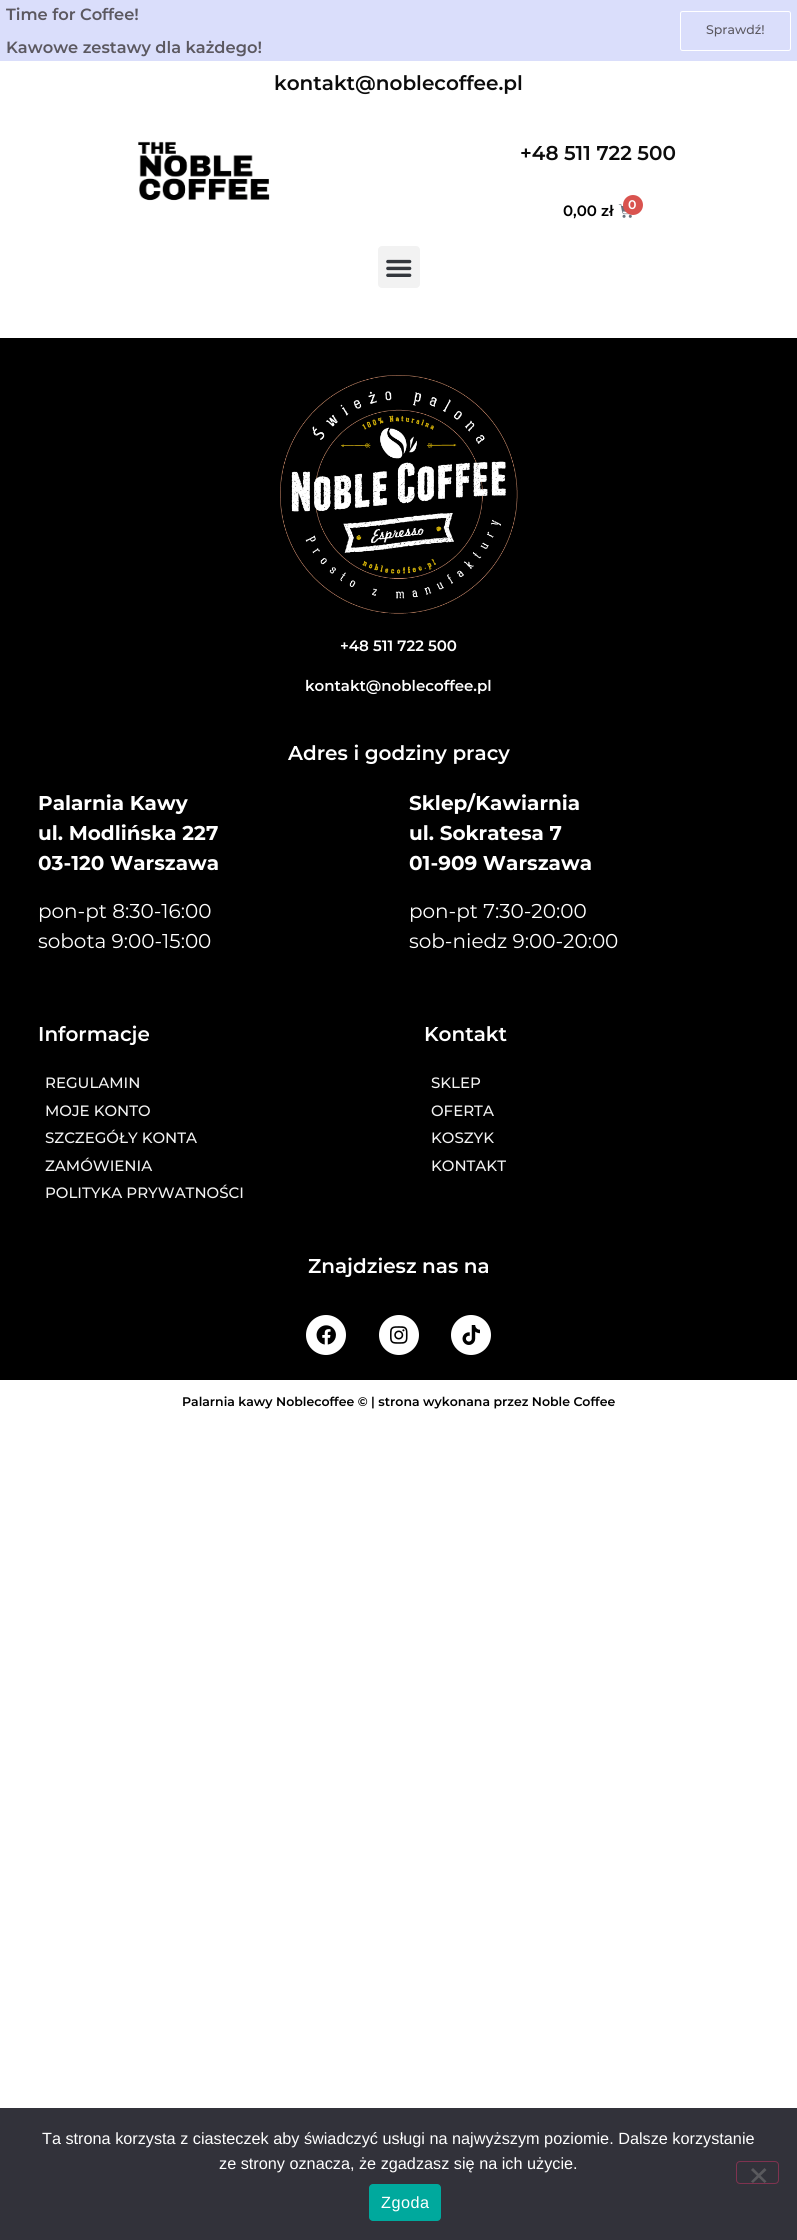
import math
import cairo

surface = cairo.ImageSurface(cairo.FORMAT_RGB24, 797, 2240)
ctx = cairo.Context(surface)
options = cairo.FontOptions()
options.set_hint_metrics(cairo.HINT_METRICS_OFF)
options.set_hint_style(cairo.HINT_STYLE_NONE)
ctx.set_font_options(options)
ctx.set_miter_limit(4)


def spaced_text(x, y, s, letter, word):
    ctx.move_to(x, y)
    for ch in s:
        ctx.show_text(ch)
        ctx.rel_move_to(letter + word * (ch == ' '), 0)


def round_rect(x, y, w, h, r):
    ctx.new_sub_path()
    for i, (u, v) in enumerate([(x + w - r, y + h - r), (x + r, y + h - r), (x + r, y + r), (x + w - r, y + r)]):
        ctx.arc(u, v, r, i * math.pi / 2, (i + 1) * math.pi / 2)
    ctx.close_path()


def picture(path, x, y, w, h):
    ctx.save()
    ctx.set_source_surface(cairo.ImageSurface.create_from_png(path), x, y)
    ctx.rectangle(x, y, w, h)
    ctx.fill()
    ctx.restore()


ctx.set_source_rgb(1, 1, 1)
ctx.paint()
ctx.set_source_rgb(0.855, 0.871, 0.984)
ctx.rectangle(0, 0, 797, 61)
ctx.fill()
ctx.select_font_face("Montserrat SemiBold")
ctx.set_font_size(16.25)
ctx.set_source_rgb(0.357, 0.345, 0.376)
ctx.move_to(6, 20)
ctx.show_text("Time for Coffee!")
ctx.move_to(6, 53)
ctx.show_text("Kawowe zestawy dla każdego!")
round_rect(680.5, 11.5, 110, 39, 2)
ctx.set_source_rgb(1, 1, 1)
ctx.set_line_width(1)
ctx.stroke()
ctx.select_font_face("Montserrat Medium")
ctx.set_font_size(12.5)
ctx.set_source_rgb(0.357, 0.345, 0.376)
ctx.move_to(706, 34)
ctx.show_text("Sprawdź!")
ctx.select_font_face("Montserrat SemiBold")
ctx.set_font_size(20)
ctx.set_source_rgb(0.047, 0.047, 0.047)
ctx.move_to(274, 90)
ctx.show_text("kontakt@noblecoffee.pl")
picture("img1.png", 138, 141, 132, 60)
ctx.move_to(520, 160)
ctx.show_text("+48 511 722 500")
ctx.set_font_size(15)
ctx.set_source_rgb(0, 0, 0)
ctx.move_to(563, 216)
ctx.show_text("0,00 zł")
picture("img2.png", 618, 204, 14, 14)
ctx.set_source_rgb(0.851, 0.325, 0.31)
ctx.arc(633, 205, 10, 0, 2 * math.pi)
ctx.fill()
ctx.set_font_size(12.5)
ctx.set_source_rgb(1, 1, 1)
ctx.move_to(628, 209)
ctx.show_text("0")
ctx.set_source_rgb(0.949, 0.949, 0.949)
round_rect(378, 246, 42, 42, 4)
ctx.fill()
picture("img3.png", 386, 259, 26, 18)
ctx.set_source_rgb(0, 0, 0)
ctx.rectangle(0, 338, 797, 1042)
ctx.fill()
picture("img4.png", 280, 375, 238, 239)
ctx.set_font_size(15)
ctx.set_source_rgb(1, 1, 1)
ctx.move_to(340, 651)
ctx.show_text("+48 511 722 500")
ctx.move_to(305, 691)
ctx.show_text("kontakt@noblecoffee.pl")
ctx.set_font_size(20)
ctx.move_to(288, 760)
ctx.show_text("Adres i godziny pracy")
ctx.select_font_face("Montserrat", cairo.FONT_SLANT_NORMAL, cairo.FONT_WEIGHT_BOLD)
ctx.move_to(38, 810)
ctx.show_text("Palarnia Kawy")
ctx.move_to(38, 840)
ctx.show_text("ul. Modlińska 227")
ctx.move_to(38, 870)
ctx.show_text("03-120 Warszawa")
ctx.move_to(409, 810)
ctx.show_text("Sklep/Kawiarnia")
ctx.move_to(409, 840)
ctx.show_text("ul. Sokratesa 7")
ctx.move_to(409, 870)
ctx.show_text("01-909 Warszawa")
ctx.select_font_face("Montserrat Thin")
ctx.move_to(38, 918)
ctx.show_text("pon-pt 8:30-16:00")
ctx.move_to(38, 948)
ctx.show_text("sobota 9:00-15:00")
ctx.move_to(409, 918)
ctx.show_text("pon-pt 7:30-20:00")
ctx.move_to(409, 948)
ctx.show_text("sob-niedz 9:00-20:00")
ctx.select_font_face("Montserrat SemiBold")
ctx.move_to(38, 1041)
ctx.show_text("Informacje")
ctx.select_font_face("Montserrat Medium")
ctx.set_font_size(15)
ctx.set_source_rgb(0.953, 0.953, 0.953)
ctx.move_to(45, 1088)
ctx.show_text("REGULAMIN")
ctx.move_to(45, 1116)
ctx.show_text("MOJE KONTO")
ctx.move_to(45, 1143)
ctx.show_text("SZCZEGÓŁY KONTA")
ctx.move_to(45, 1171)
ctx.show_text("ZAMÓWIENIA")
ctx.move_to(45, 1198)
ctx.show_text("POLITYKA PRYWATNOŚCI")
ctx.select_font_face("Montserrat SemiBold")
ctx.set_font_size(20)
ctx.set_source_rgb(1, 1, 1)
ctx.move_to(424, 1041)
ctx.show_text("Kontakt")
ctx.select_font_face("Montserrat Medium")
ctx.set_font_size(15)
ctx.set_source_rgb(0.953, 0.953, 0.953)
ctx.move_to(431, 1088)
ctx.show_text("SKLEP")
ctx.move_to(431, 1116)
ctx.show_text("OFERTA")
ctx.move_to(431, 1143)
ctx.show_text("KOSZYK")
ctx.move_to(431, 1171)
ctx.show_text("KONTAKT")
ctx.select_font_face("Montserrat SemiBold")
ctx.set_font_size(20)
ctx.set_source_rgb(1, 1, 1)
ctx.move_to(308, 1273)
ctx.show_text("Znajdziesz nas na")
ctx.new_path()
ctx.arc(326, 1335, 20, 0, 2 * math.pi)
ctx.fill()
picture("img5.png", 316, 1325, 20, 20)
ctx.arc(399, 1335, 20, 0, 2 * math.pi)
ctx.fill()
picture("img6.png", 390, 1326, 18, 18)
ctx.arc(471, 1335, 20, 0, 2 * math.pi)
ctx.fill()
picture("img7.png", 462, 1325, 18, 20)
ctx.set_font_size(12.5)
ctx.set_source_rgb(0, 0, 0)
ctx.move_to(182, 1406)
ctx.show_text("Palarnia kawy Noblecoffee © | strona wykonana przez Noble Coffee")
ctx.set_source_rgb(0.196, 0.196, 0.227)
ctx.rectangle(0, 2108, 797, 132)
ctx.fill()
ctx.select_font_face("Liberation Sans")
ctx.set_font_size(16.25)
ctx.set_source_rgb(1, 1, 1)
ctx.move_to(42, 2144)
ctx.show_text("Ta strona korzysta z ciasteczek aby świadczyć usługi na najwyższym poziomie. Dalsze korzystanie")
ctx.move_to(219, 2169)
ctx.show_text("ze strony oznacza, że zgadzasz się na ich użycie.")
round_rect(736.5, 2161.5, 42, 22, 3.5)
ctx.set_source_rgb(0.498, 0.2, 0.314)
ctx.stroke()
ctx.set_source_rgb(0.349, 0.349, 0.365)
ctx.new_path()
ctx.move_to(764.5, 2168)
ctx.line_to(766.5, 2170)
ctx.line_to(753, 2183)
ctx.line_to(751, 2181.5)
ctx.close_path()
ctx.fill()
ctx.new_path()
ctx.move_to(751, 2170)
ctx.line_to(753, 2168)
ctx.line_to(766.5, 2181.5)
ctx.line_to(764.5, 2183)
ctx.close_path()
ctx.fill()
ctx.set_source_rgb(0, 0.663, 0.616)
round_rect(369, 2184, 72, 37, 4)
ctx.fill()
ctx.set_source_rgb(1, 1, 1)
spaced_text(381, 2208, "Zgoda", 0.5, 0)
surface.write_to_png("page.png")
